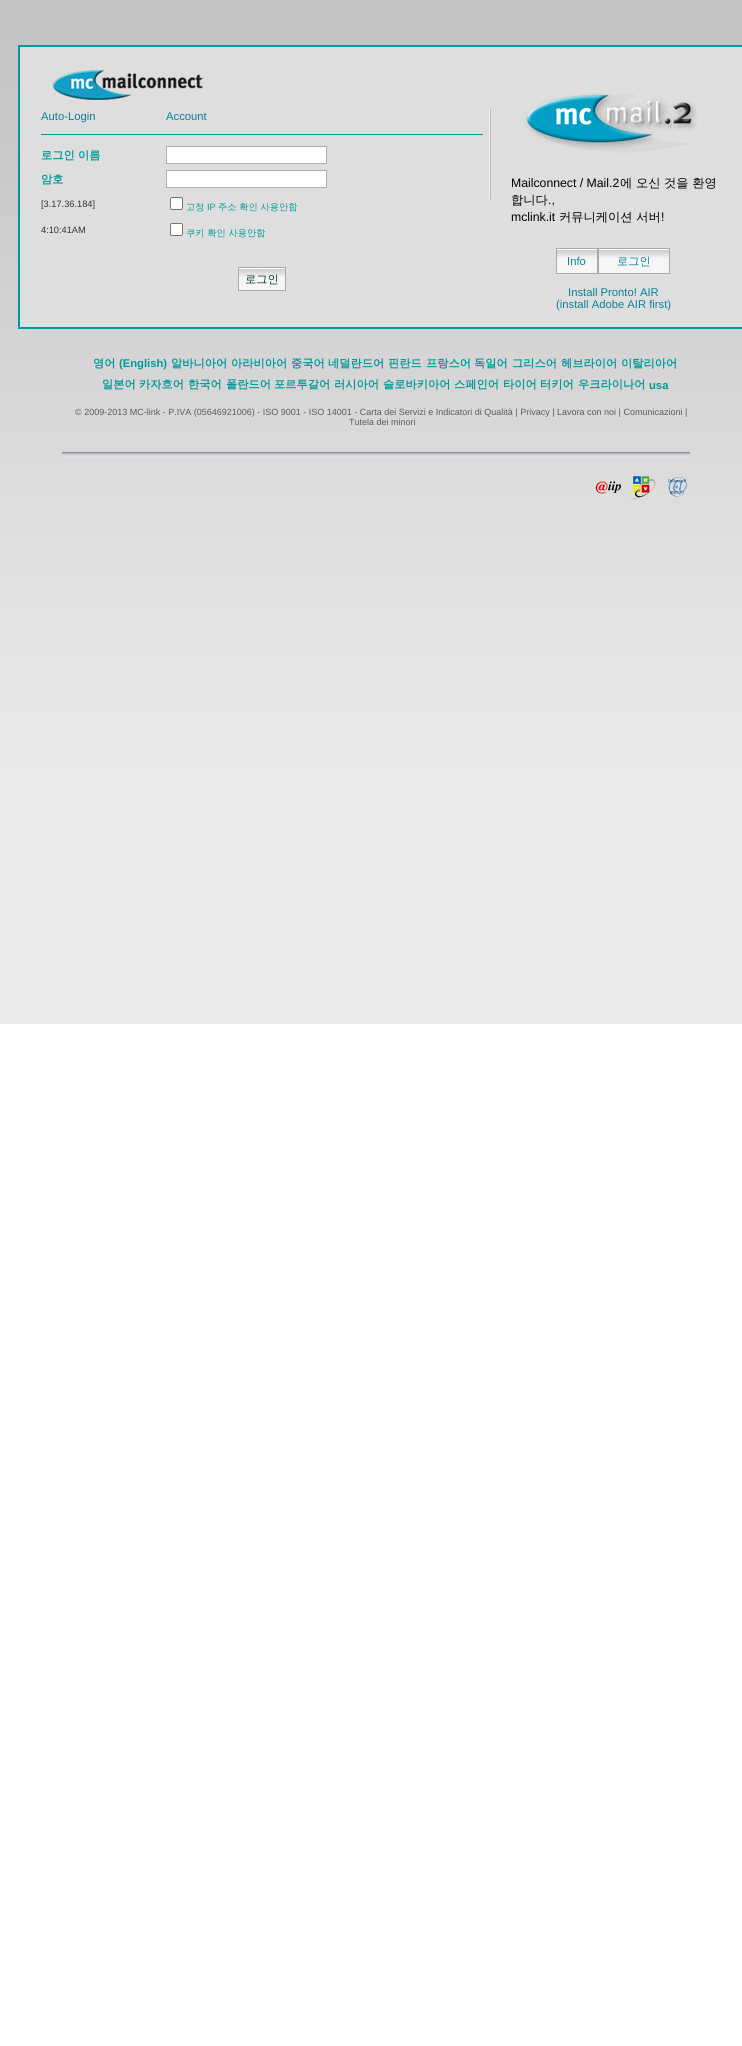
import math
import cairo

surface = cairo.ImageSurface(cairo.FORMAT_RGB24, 742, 2046)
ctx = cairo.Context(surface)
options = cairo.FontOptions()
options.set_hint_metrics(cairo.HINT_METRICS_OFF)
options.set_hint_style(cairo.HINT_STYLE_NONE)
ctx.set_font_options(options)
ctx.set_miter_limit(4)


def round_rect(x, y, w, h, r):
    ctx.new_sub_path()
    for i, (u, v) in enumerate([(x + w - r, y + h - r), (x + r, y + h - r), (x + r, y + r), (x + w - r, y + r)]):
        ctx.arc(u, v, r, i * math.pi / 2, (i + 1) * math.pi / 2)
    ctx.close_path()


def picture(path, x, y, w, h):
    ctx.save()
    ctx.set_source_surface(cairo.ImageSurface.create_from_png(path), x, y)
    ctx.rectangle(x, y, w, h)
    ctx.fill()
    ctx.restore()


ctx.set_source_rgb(1, 1, 1)
ctx.paint()
picture("img1.png", 0, 0, 742, 1024)
ctx.set_source_rgb(0.871, 0.871, 0.871)
ctx.rectangle(19, 46, 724, 282)
ctx.fill_preserve()
ctx.set_source_rgb(0, 0.6, 0.6)
ctx.stroke()
picture("img2.png", 52, 70, 151, 30)
ctx.select_font_face("Liberation Sans")
ctx.set_font_size(11.25)
ctx.set_source_rgb(0.035, 0.51, 0.596)
ctx.move_to(41, 120)
ctx.show_text("Auto-Login")
ctx.move_to(166, 120)
ctx.show_text("Account")
ctx.set_source_rgb(0, 0.6, 0.6)
ctx.rectangle(41, 134, 442, 1)
ctx.fill()
ctx.select_font_face("WenQuanYi Zen Hei", cairo.FONT_SLANT_NORMAL, cairo.FONT_WEIGHT_BOLD)
ctx.move_to(41, 159)
ctx.show_text("로그인 이름")
ctx.set_source_rgb(1, 1, 1)
ctx.rectangle(166.5, 146.5, 160, 17)
ctx.fill_preserve()
ctx.set_source_rgb(0.69, 0.682, 0.686)
ctx.set_line_width(1)
ctx.stroke()
ctx.set_source_rgb(0, 0.6, 0.6)
ctx.move_to(41, 183)
ctx.show_text("암호")
ctx.set_source_rgb(1, 1, 1)
ctx.rectangle(166.5, 170.5, 160, 17)
ctx.fill_preserve()
ctx.set_source_rgb(0.69, 0.682, 0.686)
ctx.stroke()
ctx.select_font_face("Liberation Sans")
ctx.set_font_size(9.25)
ctx.set_source_rgb(0.2, 0.2, 0.2)
ctx.move_to(41, 207)
ctx.show_text("[3.17.36.184]")
ctx.set_source_rgb(1, 1, 1)
round_rect(170.5, 197.5, 12, 12, 1.5)
ctx.fill_preserve()
ctx.set_source_rgb(0.463, 0.463, 0.463)
ctx.stroke()
ctx.select_font_face("WenQuanYi Zen Hei Medium")
ctx.set_source_rgb(0, 0.6, 0.6)
ctx.move_to(186, 210)
ctx.show_text("고정")
ctx.select_font_face("Liberation Sans")
ctx.move_to(207, 210)
ctx.show_text("IP")
ctx.select_font_face("WenQuanYi Zen Hei Medium")
ctx.move_to(218, 210)
ctx.show_text("주소 확인 사용안함")
ctx.select_font_face("Liberation Sans")
ctx.set_source_rgb(0.2, 0.2, 0.2)
ctx.move_to(41, 233)
ctx.show_text("4:10:41AM")
ctx.set_source_rgb(1, 1, 1)
round_rect(170.5, 223.5, 12, 12, 1.5)
ctx.fill_preserve()
ctx.set_source_rgb(0.463, 0.463, 0.463)
ctx.stroke()
ctx.select_font_face("WenQuanYi Zen Hei Medium")
ctx.set_source_rgb(0, 0.6, 0.6)
ctx.move_to(186, 236)
ctx.show_text("쿠키 확인 사용안함")
picture("img3.png", 489, 109, 2, 90)
picture("img4.png", 529, 94, 168, 59)
picture("img5.png", 525, 93, 172, 57)
ctx.select_font_face("Liberation Sans")
ctx.set_font_size(12.25)
ctx.set_source_rgb(0, 0, 0)
ctx.move_to(511, 187)
ctx.show_text("Mailconnect / Mail.2")
ctx.select_font_face("WenQuanYi Zen Hei Medium")
ctx.move_to(620, 187)
ctx.show_text("에 오신 것을 환영")
ctx.move_to(511, 204)
ctx.show_text("합니다")
ctx.select_font_face("Liberation Sans")
ctx.move_to(548, 204)
ctx.show_text(".,")
ctx.move_to(511, 221)
ctx.show_text("mclink.it")
ctx.select_font_face("WenQuanYi Zen Hei Medium")
ctx.move_to(559, 221)
ctx.show_text("커뮤니케이션 서버")
ctx.select_font_face("Liberation Sans")
ctx.move_to(661, 221)
ctx.show_text("!")
picture("img6.png", 239, 268, 46, 22)
ctx.rectangle(238.5, 267.5, 47, 23)
ctx.set_source_rgb(0.659, 0.663, 0.663)
ctx.stroke()
ctx.select_font_face("WenQuanYi Zen Hei Medium")
ctx.set_font_size(11.25)
ctx.set_source_rgb(0, 0.2, 0.2)
ctx.move_to(245, 283)
ctx.show_text("로그인")
picture("img7.png", 557, 249, 40, 24)
ctx.rectangle(556.5, 248.5, 41, 25)
ctx.set_source_rgb(0.659, 0.663, 0.663)
ctx.stroke()
ctx.select_font_face("Liberation Sans")
ctx.set_source_rgb(0.035, 0.51, 0.596)
ctx.move_to(567, 265)
ctx.show_text("Info")
picture("img8.png", 599, 249, 70, 24)
ctx.rectangle(598.5, 248.5, 71, 25)
ctx.set_source_rgb(0.659, 0.663, 0.663)
ctx.stroke()
ctx.select_font_face("WenQuanYi Zen Hei Medium")
ctx.set_source_rgb(0.035, 0.51, 0.596)
ctx.move_to(617, 265)
ctx.show_text("로그인")
ctx.select_font_face("Liberation Sans")
ctx.move_to(568, 296)
ctx.show_text("Install Pronto! AIR")
ctx.move_to(556, 308)
ctx.show_text("(install Adobe AIR first)")
ctx.select_font_face("WenQuanYi Zen Hei", cairo.FONT_SLANT_NORMAL, cairo.FONT_WEIGHT_BOLD)
ctx.set_source_rgb(0, 0.6, 0.6)
ctx.move_to(93, 367)
ctx.show_text("영어")
ctx.select_font_face("Liberation Sans", cairo.FONT_SLANT_NORMAL, cairo.FONT_WEIGHT_BOLD)
ctx.move_to(119, 367)
ctx.show_text("(English)")
ctx.select_font_face("WenQuanYi Zen Hei", cairo.FONT_SLANT_NORMAL, cairo.FONT_WEIGHT_BOLD)
ctx.move_to(171, 367)
ctx.show_text("알바니아어")
ctx.move_to(231, 367)
ctx.show_text("아라비아어")
ctx.move_to(291, 367)
ctx.show_text("중국어")
ctx.move_to(328, 367)
ctx.show_text("네덜란드어")
ctx.move_to(388, 367)
ctx.show_text("핀란드")
ctx.move_to(426, 367)
ctx.show_text("프랑스어")
ctx.move_to(474, 367)
ctx.show_text("독일어")
ctx.move_to(512, 367)
ctx.show_text("그리스어")
ctx.move_to(561, 367)
ctx.show_text("헤브라이어")
ctx.move_to(621, 367)
ctx.show_text("이탈리아어")
ctx.move_to(102, 388)
ctx.show_text("일본어")
ctx.move_to(139, 388)
ctx.show_text("카자흐어")
ctx.move_to(188, 388)
ctx.show_text("한국어")
ctx.move_to(226, 388)
ctx.show_text("폴란드어")
ctx.move_to(274, 388)
ctx.show_text("포르투갈어")
ctx.move_to(334, 388)
ctx.show_text("러시아어")
ctx.move_to(383, 388)
ctx.show_text("슬로바키아어")
ctx.move_to(454, 388)
ctx.show_text("스페인어")
ctx.move_to(503, 388)
ctx.show_text("타이어")
ctx.move_to(540, 388)
ctx.show_text("터키어")
ctx.move_to(578, 388)
ctx.show_text("우크라이나어")
ctx.select_font_face("Liberation Sans", cairo.FONT_SLANT_NORMAL, cairo.FONT_WEIGHT_BOLD)
ctx.move_to(649, 389)
ctx.show_text("usa")
picture("img9.png", 62, 452, 628, 5)
ctx.select_font_face("Liberation Sans")
ctx.set_font_size(9)
ctx.set_source_rgb(0.357, 0.357, 0.357)
ctx.move_to(75, 415)
ctx.show_text("© 2009-2013 MC-link - P.IVA (05646921006) - ISO 9001 - ISO 14001 - Carta dei Servizi e Indicatori di Qualità | Privacy | Lavora con noi | Comunicazioni |")
ctx.move_to(349, 425)
ctx.show_text("Tutela dei minori")
picture("img10.png", 595, 476, 92, 23)
surface.write_to_png("page.png")
